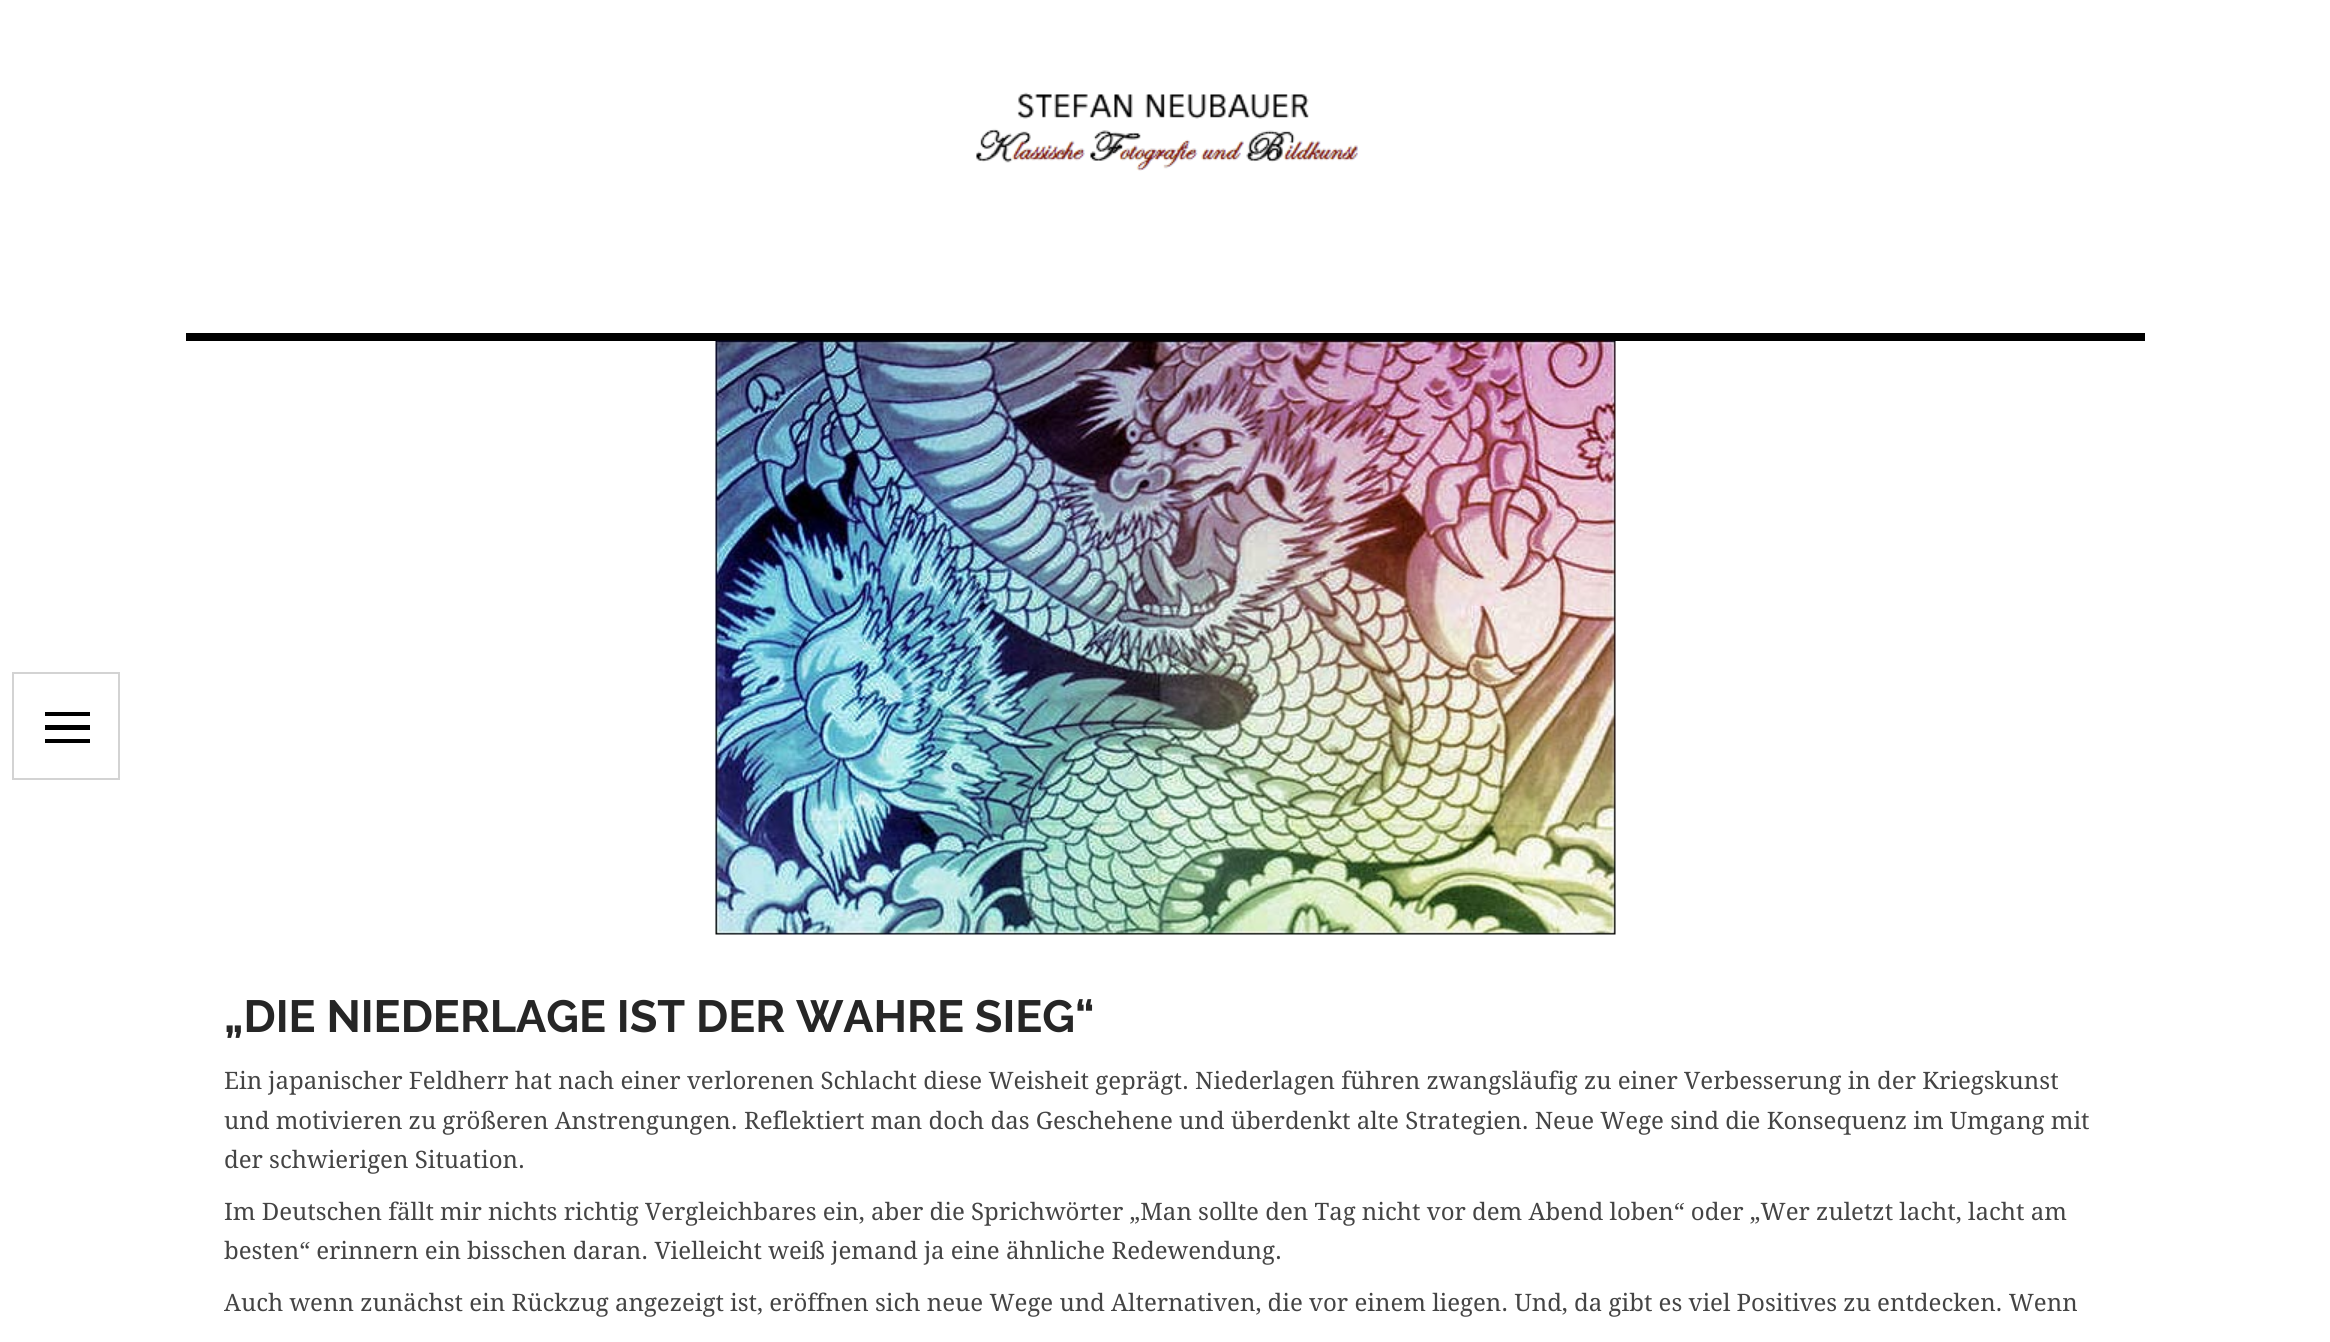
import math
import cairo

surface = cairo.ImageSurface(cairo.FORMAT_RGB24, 2330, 1342)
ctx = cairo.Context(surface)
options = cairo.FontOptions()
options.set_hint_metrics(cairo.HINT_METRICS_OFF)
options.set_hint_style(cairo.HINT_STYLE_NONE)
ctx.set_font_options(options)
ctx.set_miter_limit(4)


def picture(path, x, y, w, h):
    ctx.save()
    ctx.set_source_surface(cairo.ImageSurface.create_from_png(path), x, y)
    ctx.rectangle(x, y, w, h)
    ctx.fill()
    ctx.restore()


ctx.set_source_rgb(1, 1, 1)
ctx.paint()
picture("img1.png", 976, 92, 383, 79)
ctx.rectangle(13, 673, 106, 106)
ctx.set_source_rgb(0.827, 0.827, 0.827)
ctx.stroke()
ctx.set_source_rgb(0, 0, 0)
ctx.new_path()
ctx.move_to(45, 730)
ctx.line_to(45, 725)
ctx.line_to(90, 725)
ctx.line_to(90, 730)
ctx.close_path()
ctx.move_to(45, 716)
ctx.line_to(45, 712)
ctx.line_to(90, 712)
ctx.line_to(90, 716)
ctx.close_path()
ctx.move_to(45, 743)
ctx.line_to(45, 739)
ctx.line_to(90, 739)
ctx.line_to(90, 743)
ctx.close_path()
ctx.fill()
ctx.rectangle(186, 333, 1959, 8)
ctx.fill()
picture("img2.png", 715, 340, 901, 595)
ctx.select_font_face("Raleway", cairo.FONT_SLANT_NORMAL, cairo.FONT_WEIGHT_BOLD)
ctx.set_font_size(45)
ctx.set_source_rgb(0.149, 0.149, 0.149)
ctx.move_to(224, 1032)
ctx.show_text("„DIE NIEDERLAGE IST DER WAHRE SIEG“")
ctx.select_font_face("Droid Serif")
ctx.set_font_size(24)
ctx.set_source_rgb(0.267, 0.267, 0.267)
ctx.move_to(224, 1089)
ctx.show_text("Ein japanischer Feldherr hat nach einer verlorenen Schlacht diese Weisheit geprägt. Niederlagen führen zwangsläufig zu einer Verbesserung in der Kriegskunst")
ctx.move_to(224, 1129)
ctx.show_text("und motivieren zu größeren Anstrengungen. Reflektiert man doch das Geschehene und überdenkt alte Strategien. Neue Wege sind die Konsequenz im Umgang mit")
ctx.move_to(224, 1168)
ctx.show_text("der schwierigen Situation.")
ctx.move_to(224, 1220)
ctx.show_text("Im Deutschen fällt mir nichts richtig Vergleichbares ein, aber die Sprichwörter „Man sollte den Tag nicht vor dem Abend loben“ oder „Wer zuletzt lacht, lacht am")
ctx.move_to(224, 1259)
ctx.show_text("besten“ erinnern ein bisschen daran. Vielleicht weiß jemand ja eine ähnliche Redewendung.")
ctx.move_to(224, 1311)
ctx.show_text("Auch wenn zunächst ein Rückzug angezeigt ist, eröffnen sich neue Wege und Alternativen, die vor einem liegen. Und, da gibt es viel Positives zu entdecken. Wenn")
surface.write_to_png("page.png")
